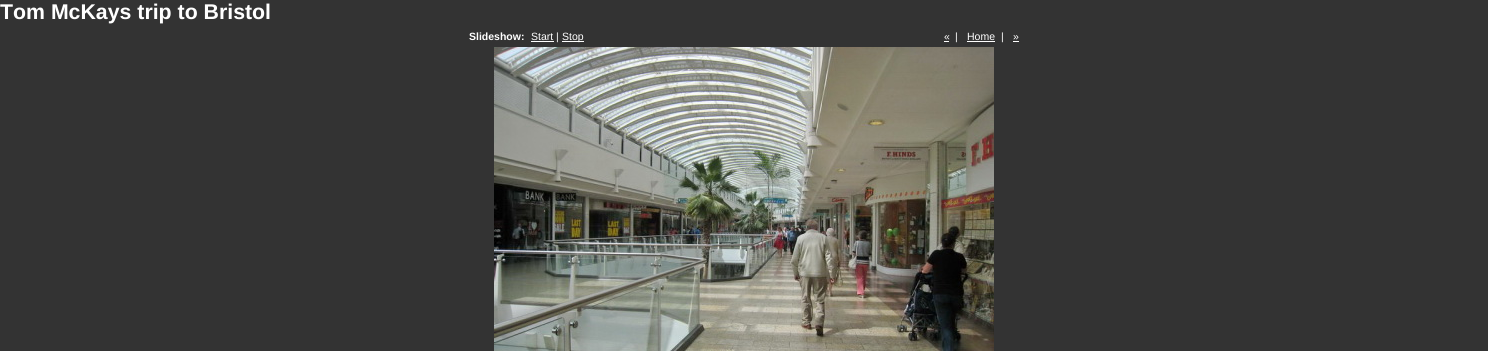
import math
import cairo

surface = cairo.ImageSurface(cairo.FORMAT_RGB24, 1488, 351)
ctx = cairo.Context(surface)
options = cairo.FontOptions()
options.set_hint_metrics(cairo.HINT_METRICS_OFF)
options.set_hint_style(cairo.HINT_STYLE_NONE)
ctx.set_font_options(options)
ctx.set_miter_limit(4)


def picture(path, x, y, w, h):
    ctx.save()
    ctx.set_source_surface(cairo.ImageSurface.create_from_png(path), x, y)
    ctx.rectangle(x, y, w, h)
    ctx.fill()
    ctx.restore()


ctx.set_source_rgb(0.2, 0.2, 0.2)
ctx.paint()
ctx.select_font_face("Liberation Sans", cairo.FONT_SLANT_NORMAL, cairo.FONT_WEIGHT_BOLD)
ctx.set_font_size(21.3)
ctx.set_source_rgb(1, 1, 1)
ctx.move_to(0, 19)
ctx.show_text("Tom McKays trip to Bristol")
ctx.set_font_size(10.5)
ctx.move_to(469, 40)
ctx.show_text("Slideshow:")
ctx.rectangle(531, 41, 23, 1)
ctx.fill()
ctx.select_font_face("Liberation Sans")
ctx.move_to(531, 40)
ctx.show_text("Start |")
ctx.rectangle(562, 41, 22, 1)
ctx.fill()
ctx.move_to(562, 40)
ctx.show_text("Stop")
ctx.move_to(944, 40)
ctx.show_text("«")
ctx.rectangle(944, 41, 5, 1)
ctx.fill()
ctx.move_to(955, 40)
ctx.show_text("|")
ctx.move_to(967, 40)
ctx.show_text("Home")
ctx.rectangle(967, 41, 28, 1)
ctx.fill()
ctx.move_to(1001, 40)
ctx.show_text("|")
ctx.move_to(1013, 40)
ctx.show_text("»")
ctx.rectangle(1013, 41, 6, 1)
ctx.fill()
picture("img1.png", 494, 47, 500, 304)
surface.write_to_png("page.png")
